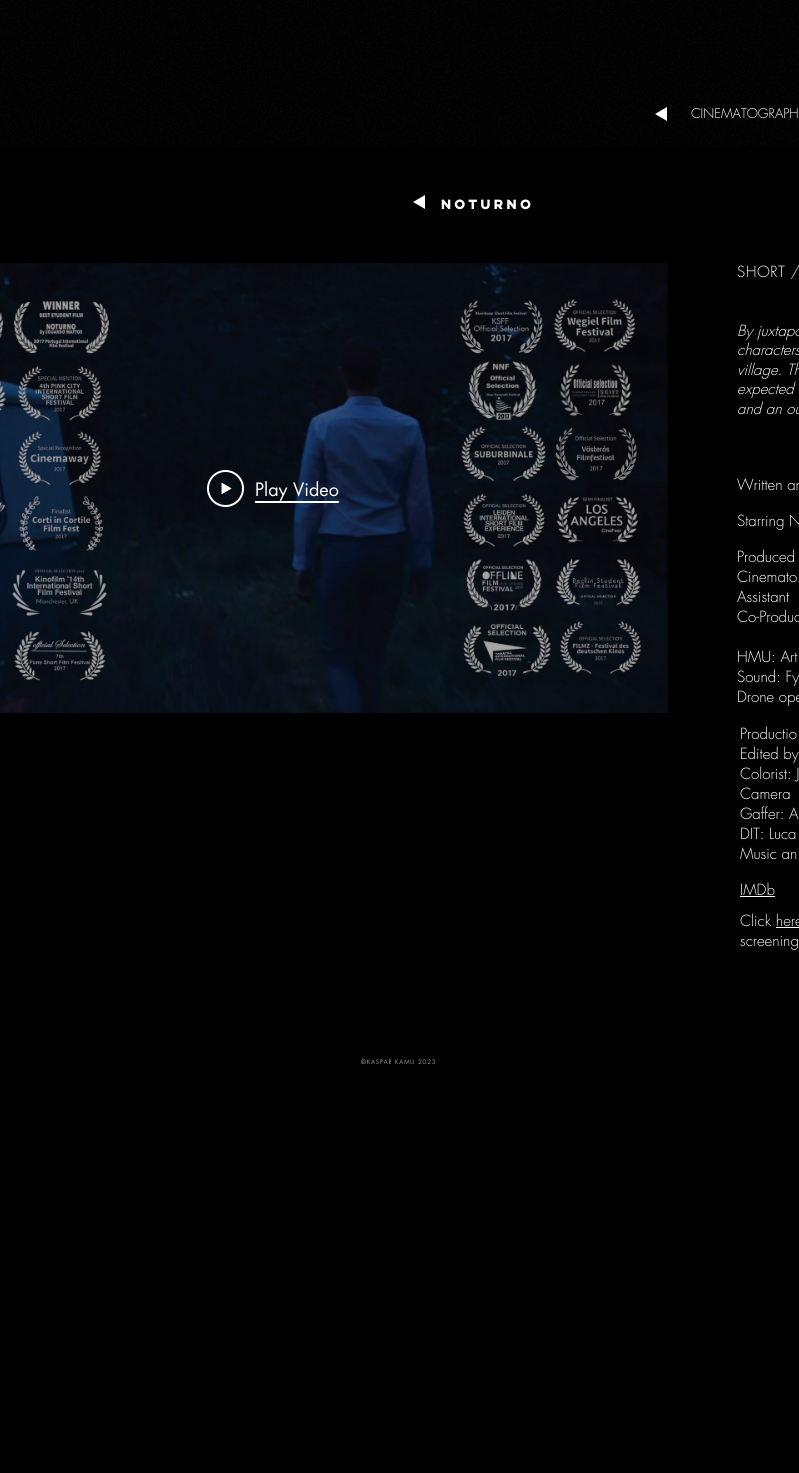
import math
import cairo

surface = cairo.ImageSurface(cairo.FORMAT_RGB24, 799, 1473)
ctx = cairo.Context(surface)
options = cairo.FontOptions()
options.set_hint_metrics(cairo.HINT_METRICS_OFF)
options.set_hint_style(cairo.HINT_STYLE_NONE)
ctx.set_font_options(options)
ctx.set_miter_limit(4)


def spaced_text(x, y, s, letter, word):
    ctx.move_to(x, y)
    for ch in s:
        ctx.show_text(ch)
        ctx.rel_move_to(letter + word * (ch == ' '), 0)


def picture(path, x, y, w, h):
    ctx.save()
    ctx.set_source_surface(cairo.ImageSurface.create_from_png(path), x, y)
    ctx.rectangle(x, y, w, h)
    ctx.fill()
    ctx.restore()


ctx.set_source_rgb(0, 0, 0)
ctx.paint()
picture("img1.png", 0, 0, 799, 147)
ctx.set_source_rgb(1, 1, 1)
ctx.new_path()
ctx.move_to(655, 114)
ctx.line_to(667, 107)
ctx.line_to(667, 121)
ctx.close_path()
ctx.fill()
ctx.select_font_face("futura Light")
ctx.set_font_size(13)
ctx.move_to(691, 118)
ctx.show_text("CINEMATOGRAPH")
ctx.new_path()
ctx.move_to(413, 202)
ctx.line_to(425, 195)
ctx.line_to(425, 209)
ctx.close_path()
ctx.fill()
ctx.select_font_face("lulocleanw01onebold", cairo.FONT_SLANT_NORMAL, cairo.FONT_WEIGHT_BOLD)
ctx.set_font_size(12)
spaced_text(441, 209, "NOTURNO", 0.75, 0)
ctx.select_font_face("futura Light")
ctx.set_font_size(15)
spaced_text(737, 277, "SHORT /", 0.5, 0)
ctx.select_font_face("futura Light", cairo.FONT_SLANT_ITALIC)
ctx.move_to(737, 336)
ctx.show_text("By juxtapo")
ctx.move_to(737, 355)
ctx.show_text("characters")
ctx.move_to(737, 375)
ctx.show_text("village. Th")
ctx.move_to(737, 394)
ctx.show_text("expected")
ctx.move_to(737, 414)
ctx.show_text("and an ou")
picture("img2.png", 0, 263, 669, 450)
picture("img3.png", 207, 470, 37, 37)
ctx.rectangle(255, 501, 84, 2)
ctx.fill()
ctx.select_font_face("futura")
ctx.set_font_size(18)
ctx.move_to(255, 496)
ctx.show_text("Play Video")
ctx.select_font_face("futura Light")
ctx.set_font_size(15)
ctx.move_to(737, 490)
ctx.show_text("Written an")
ctx.move_to(737, 526)
ctx.show_text("Starring N")
ctx.move_to(737, 562)
ctx.show_text("Produced")
ctx.move_to(737, 582)
ctx.show_text("Cinemato")
ctx.move_to(737, 602)
ctx.show_text("Assistant")
ctx.move_to(737, 622)
ctx.show_text("Co-Produc")
ctx.move_to(737, 662)
ctx.show_text("HMU: Art")
ctx.move_to(737, 682)
ctx.show_text("Sound: Fy")
ctx.move_to(737, 702)
ctx.show_text("Drone ope")
ctx.move_to(740, 739)
ctx.show_text("Productio")
ctx.move_to(740, 759)
ctx.show_text("Edited by")
ctx.move_to(740, 779)
ctx.show_text("Colorist: J")
ctx.move_to(740, 799)
ctx.show_text("Camera")
ctx.move_to(740, 819)
ctx.show_text("Gaffer: A")
ctx.move_to(740, 839)
ctx.show_text("DIT: Luca")
ctx.move_to(740, 859)
ctx.show_text("Music an")
ctx.move_to(740, 895)
ctx.show_text("IMDb")
ctx.rectangle(740, 896, 35, 1)
ctx.fill()
ctx.move_to(740, 926)
ctx.show_text("Click here")
ctx.rectangle(776, 927, 23, 1)
ctx.fill()
ctx.move_to(740, 946)
ctx.show_text("screening")
ctx.set_font_size(6)
spaced_text(361, 1064, "©KASPAR KAMU 2023", 0.9, 0)
surface.write_to_png("page.png")
